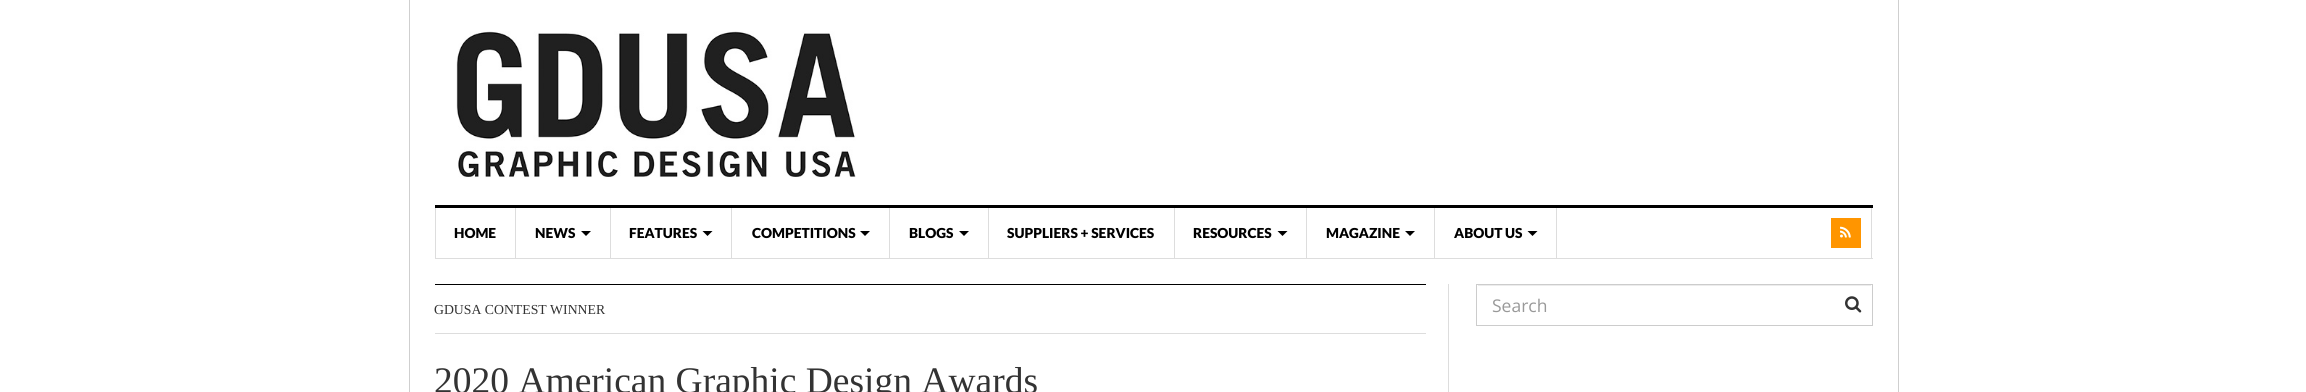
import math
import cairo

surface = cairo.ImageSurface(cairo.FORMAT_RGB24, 2306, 392)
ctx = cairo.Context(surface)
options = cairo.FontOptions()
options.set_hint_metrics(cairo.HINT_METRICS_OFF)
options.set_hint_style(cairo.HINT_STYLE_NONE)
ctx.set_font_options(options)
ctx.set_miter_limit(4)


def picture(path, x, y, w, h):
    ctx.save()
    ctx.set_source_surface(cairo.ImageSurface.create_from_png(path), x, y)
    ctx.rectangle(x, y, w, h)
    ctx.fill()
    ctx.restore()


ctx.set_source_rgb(1, 1, 1)
ctx.paint()
ctx.rectangle(409.5, -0.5, 1489, 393)
ctx.set_source_rgb(0.812, 0.812, 0.812)
ctx.set_line_width(1)
ctx.stroke()
picture("img1.png", 456, 31, 400, 147)
ctx.set_source_rgb(0, 0, 0)
ctx.rectangle(435, 205, 1438, 3)
ctx.fill()
ctx.set_source_rgb(0.867, 0.867, 0.867)
ctx.rectangle(1871, 208, 1, 51)
ctx.fill()
ctx.rectangle(435, 258, 1438, 1)
ctx.fill()
ctx.rectangle(435, 208, 1, 51)
ctx.fill()
ctx.rectangle(515, 208, 1, 50)
ctx.fill()
ctx.select_font_face("Lato Black")
ctx.set_font_size(13.75)
ctx.set_source_rgb(0, 0, 0)
ctx.move_to(454, 238)
ctx.show_text("HOME")
ctx.set_source_rgb(0.867, 0.867, 0.867)
ctx.rectangle(610, 208, 1, 50)
ctx.fill()
ctx.set_source_rgb(0, 0, 0)
ctx.move_to(535, 238)
ctx.show_text("NEWS")
ctx.new_path()
ctx.move_to(581, 231)
ctx.line_to(591, 231)
ctx.line_to(586, 236)
ctx.close_path()
ctx.fill()
ctx.set_source_rgb(0.867, 0.867, 0.867)
ctx.rectangle(731, 208, 1, 50)
ctx.fill()
ctx.set_source_rgb(0, 0, 0)
ctx.move_to(629, 238)
ctx.show_text("FEATURES")
ctx.new_path()
ctx.move_to(702.5, 231)
ctx.line_to(712.5, 231)
ctx.line_to(707.5, 236)
ctx.close_path()
ctx.fill()
ctx.set_source_rgb(0.867, 0.867, 0.867)
ctx.rectangle(889, 208, 1, 50)
ctx.fill()
ctx.set_source_rgb(0, 0, 0)
ctx.move_to(752, 238)
ctx.show_text("COMPETITIONS")
ctx.new_path()
ctx.move_to(860, 231)
ctx.line_to(870, 231)
ctx.line_to(865, 236)
ctx.close_path()
ctx.fill()
ctx.set_source_rgb(0.867, 0.867, 0.867)
ctx.rectangle(988, 208, 1, 50)
ctx.fill()
ctx.set_source_rgb(0, 0, 0)
ctx.move_to(909, 238)
ctx.show_text("BLOGS")
ctx.new_path()
ctx.move_to(959, 231)
ctx.line_to(969, 231)
ctx.line_to(964, 236)
ctx.close_path()
ctx.fill()
ctx.set_source_rgb(0.867, 0.867, 0.867)
ctx.rectangle(1174, 208, 1, 50)
ctx.fill()
ctx.set_source_rgb(0, 0, 0)
ctx.move_to(1007, 238)
ctx.show_text("SUPPLIERS + SERVICES")
ctx.set_source_rgb(0.867, 0.867, 0.867)
ctx.rectangle(1306, 208, 1, 50)
ctx.fill()
ctx.set_source_rgb(0, 0, 0)
ctx.move_to(1193, 238)
ctx.show_text("RESOURCES")
ctx.new_path()
ctx.move_to(1277.5, 231)
ctx.line_to(1287.5, 231)
ctx.line_to(1282.5, 236)
ctx.close_path()
ctx.fill()
ctx.set_source_rgb(0.867, 0.867, 0.867)
ctx.rectangle(1434, 208, 1, 50)
ctx.fill()
ctx.set_source_rgb(0, 0, 0)
ctx.move_to(1326, 238)
ctx.show_text("MAGAZINE")
ctx.new_path()
ctx.move_to(1405, 231)
ctx.line_to(1415, 231)
ctx.line_to(1410, 236)
ctx.close_path()
ctx.fill()
ctx.set_source_rgb(0.867, 0.867, 0.867)
ctx.rectangle(1556, 208, 1, 50)
ctx.fill()
ctx.set_source_rgb(0, 0, 0)
ctx.move_to(1454, 238)
ctx.show_text("ABOUT US")
ctx.new_path()
ctx.move_to(1527.5, 231)
ctx.line_to(1537.5, 231)
ctx.line_to(1532.5, 236)
ctx.close_path()
ctx.fill()
ctx.set_source_rgb(1, 0.584, 0)
ctx.rectangle(1831, 218, 30, 30)
ctx.fill()
picture("img2.png", 1840, 226, 11, 12)
ctx.set_source_rgb(0.867, 0.867, 0.867)
ctx.rectangle(1448, 284, 1, 108)
ctx.fill()
ctx.set_source_rgb(0, 0, 0)
ctx.rectangle(435, 284, 991, 1)
ctx.fill()
ctx.set_source_rgb(0.867, 0.867, 0.867)
ctx.rectangle(435, 333, 991, 1)
ctx.fill()
ctx.select_font_face("Liberation Serif")
ctx.set_source_rgb(0.2, 0.2, 0.2)
ctx.move_to(434, 314)
ctx.show_text("GDUSA CONTEST WINNER")
ctx.set_font_size(37.5)
ctx.move_to(434, 393)
ctx.show_text("2020 American Graphic Design Awards")
ctx.set_source_rgb(0.925, 0.925, 0.925)
ctx.rectangle(1478, 285, 393, 1)
ctx.fill()
ctx.rectangle(1476.5, 284.5, 396, 41)
ctx.set_source_rgb(0.8, 0.8, 0.8)
ctx.stroke()
ctx.select_font_face("Open Sans")
ctx.set_font_size(17.5)
ctx.set_source_rgb(0.6, 0.6, 0.6)
ctx.move_to(1492, 312)
ctx.show_text("Search")
picture("img3.png", 1845, 296, 17, 17)
surface.write_to_png("page.png")
